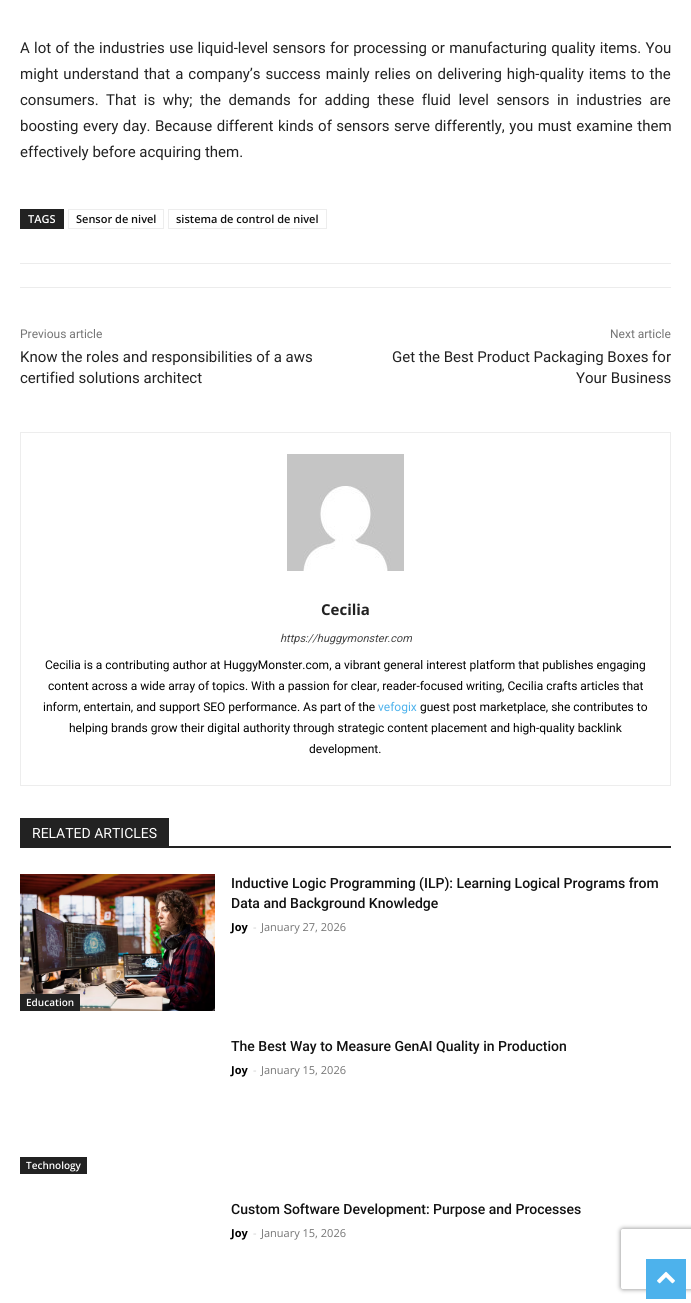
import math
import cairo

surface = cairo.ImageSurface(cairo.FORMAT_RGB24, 691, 1303)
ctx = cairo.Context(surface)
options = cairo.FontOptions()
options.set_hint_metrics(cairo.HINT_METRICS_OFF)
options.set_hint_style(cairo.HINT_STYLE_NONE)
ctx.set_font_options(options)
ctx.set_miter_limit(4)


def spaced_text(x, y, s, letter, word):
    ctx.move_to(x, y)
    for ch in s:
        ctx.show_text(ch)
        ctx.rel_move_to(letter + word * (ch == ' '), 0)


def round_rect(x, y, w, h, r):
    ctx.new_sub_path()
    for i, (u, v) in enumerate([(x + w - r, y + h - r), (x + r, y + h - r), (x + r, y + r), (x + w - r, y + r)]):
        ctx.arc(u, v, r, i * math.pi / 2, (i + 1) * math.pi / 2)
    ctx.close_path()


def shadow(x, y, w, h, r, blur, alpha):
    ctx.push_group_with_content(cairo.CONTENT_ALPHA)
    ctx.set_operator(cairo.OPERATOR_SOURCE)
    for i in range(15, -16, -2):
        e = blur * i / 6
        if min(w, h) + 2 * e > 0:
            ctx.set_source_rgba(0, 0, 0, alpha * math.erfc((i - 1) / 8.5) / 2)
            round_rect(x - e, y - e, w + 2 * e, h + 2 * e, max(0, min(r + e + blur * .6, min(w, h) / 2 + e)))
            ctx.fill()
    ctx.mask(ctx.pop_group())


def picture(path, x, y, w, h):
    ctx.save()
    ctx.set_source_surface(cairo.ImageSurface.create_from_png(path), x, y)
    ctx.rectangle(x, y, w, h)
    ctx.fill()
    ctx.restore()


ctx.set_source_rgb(1, 1, 1)
ctx.paint()
ctx.select_font_face("Roboto")
ctx.set_font_size(15)
ctx.set_source_rgb(0.133, 0.133, 0.133)
spaced_text(20, 53, "A lot of the industries use liquid-level sensors for processing or manufacturing quality items. You", 0, 0.6)
spaced_text(20, 79, "might understand that a company’s success mainly relies on delivering high-quality items to the", 0, 1.25)
spaced_text(20, 105, "consumers. That is why; the demands for adding these fluid level sensors in industries are", 0, 3.75)
spaced_text(20, 131, "boosting every day. Because different kinds of sensors serve differently, you must examine them", 0, 0.75)
ctx.move_to(20, 157)
ctx.show_text("effectively before acquiring them.")
ctx.rectangle(20, 209, 44, 20)
ctx.fill()
ctx.select_font_face("Open Sans SemiBold")
ctx.set_font_size(11)
ctx.set_source_rgb(1, 1, 1)
ctx.move_to(28, 223)
ctx.show_text("TAGS")
ctx.rectangle(68.5, 209.5, 95, 19)
ctx.set_source_rgb(0.929, 0.929, 0.929)
ctx.set_line_width(1)
ctx.stroke()
ctx.set_source_rgb(0.067, 0.067, 0.067)
ctx.move_to(76, 223)
ctx.show_text("Sensor de nivel")
ctx.rectangle(168.5, 209.5, 158, 19)
ctx.set_source_rgb(0.929, 0.929, 0.929)
ctx.stroke()
ctx.set_source_rgb(0.067, 0.067, 0.067)
ctx.move_to(176, 223)
ctx.show_text("sistema de control de nivel")
ctx.set_source_rgb(0.922, 0.922, 0.922)
ctx.rectangle(20, 263, 651, 1)
ctx.fill()
ctx.rectangle(20, 287, 651, 1)
ctx.fill()
ctx.select_font_face("Roboto")
ctx.set_font_size(12)
ctx.set_source_rgb(0.455, 0.455, 0.455)
ctx.move_to(20, 338)
ctx.show_text("Previous article")
ctx.set_font_size(15)
ctx.set_source_rgb(0.133, 0.133, 0.133)
ctx.move_to(20, 362)
ctx.show_text("Know the roles and responsibilities of a aws")
ctx.move_to(20, 383)
ctx.show_text("certified solutions architect")
ctx.set_font_size(12)
ctx.set_source_rgb(0.455, 0.455, 0.455)
ctx.move_to(610, 338)
ctx.show_text("Next article")
ctx.set_font_size(15)
ctx.set_source_rgb(0.133, 0.133, 0.133)
ctx.move_to(392, 362)
ctx.show_text("Get the Best Product Packaging Boxes for")
ctx.move_to(576, 383)
ctx.show_text("Your Business")
ctx.rectangle(20.5, 432.5, 650, 353)
ctx.set_source_rgb(0.929, 0.929, 0.929)
ctx.stroke()
picture("img1.png", 287, 454, 117, 117)
ctx.select_font_face("Open Sans", cairo.FONT_SLANT_NORMAL, cairo.FONT_WEIGHT_BOLD)
ctx.set_source_rgb(0.133, 0.133, 0.133)
ctx.move_to(321, 615)
ctx.show_text("Cecilia")
ctx.select_font_face("Roboto", cairo.FONT_SLANT_ITALIC)
ctx.set_font_size(11)
ctx.set_source_rgb(0.267, 0.267, 0.267)
ctx.move_to(280, 642)
ctx.show_text("https://huggymonster.com")
ctx.select_font_face("Roboto")
ctx.set_font_size(12)
ctx.set_source_rgb(0, 0, 0)
ctx.move_to(45, 669)
ctx.show_text("Cecilia is a contributing author at HuggyMonster.com, a vibrant general interest platform that publishes engaging")
ctx.move_to(48, 690)
ctx.show_text("content across a wide array of topics. With a passion for clear, reader-focused writing, Cecilia crafts articles that")
ctx.move_to(43, 711)
ctx.show_text("inform, entertain, and support SEO performance. As part of the")
ctx.set_source_rgb(0.302, 0.698, 0.925)
ctx.move_to(378, 711)
ctx.show_text("vefogix")
ctx.set_source_rgb(0, 0, 0)
ctx.move_to(420, 711)
ctx.show_text("guest post marketplace, she contributes to")
ctx.move_to(69, 732)
ctx.show_text("helping brands grow their digital authority through strategic content placement and high-quality backlink")
ctx.move_to(309, 753)
ctx.show_text("development.")
ctx.set_source_rgb(0.133, 0.133, 0.133)
ctx.rectangle(20, 846, 651, 2)
ctx.fill()
ctx.rectangle(20, 818, 149, 28)
ctx.fill()
ctx.set_font_size(14)
ctx.set_source_rgb(1, 1, 1)
ctx.move_to(32, 838)
ctx.show_text("RELATED ARTICLES")
ctx.select_font_face("Roboto Medium")
ctx.set_source_rgb(0.067, 0.067, 0.067)
ctx.move_to(231, 888)
ctx.show_text("Inductive Logic Programming (ILP): Learning Logical Programs from")
ctx.move_to(231, 908)
ctx.show_text("Data and Background Knowledge")
ctx.select_font_face("Open Sans", cairo.FONT_SLANT_NORMAL, cairo.FONT_WEIGHT_BOLD)
ctx.set_font_size(11)
ctx.set_source_rgb(0, 0, 0)
ctx.move_to(231, 931)
ctx.show_text("Joy")
ctx.select_font_face("Open Sans")
ctx.set_source_rgb(0.8, 0.8, 0.8)
ctx.move_to(253, 931)
ctx.show_text("-")
ctx.set_source_rgb(0.455, 0.455, 0.455)
ctx.move_to(261, 931)
ctx.show_text("January 27, 2026")
picture("img2.png", 20, 874, 195, 137)
ctx.set_source_rgb(0.133, 0.133, 0.133)
ctx.rectangle(20, 994, 60, 17)
ctx.fill()
ctx.select_font_face("Open Sans SemiBold")
ctx.set_font_size(10)
ctx.set_source_rgb(1, 1, 1)
ctx.move_to(26, 1006)
ctx.show_text("Education")
ctx.select_font_face("Roboto Medium")
ctx.set_font_size(14)
ctx.set_source_rgb(0.067, 0.067, 0.067)
ctx.move_to(231, 1051)
ctx.show_text("The Best Way to Measure GenAI Quality in Production")
ctx.select_font_face("Open Sans", cairo.FONT_SLANT_NORMAL, cairo.FONT_WEIGHT_BOLD)
ctx.set_font_size(11)
ctx.set_source_rgb(0, 0, 0)
ctx.move_to(231, 1074)
ctx.show_text("Joy")
ctx.select_font_face("Open Sans")
ctx.set_source_rgb(0.8, 0.8, 0.8)
ctx.move_to(253, 1074)
ctx.show_text("-")
ctx.set_source_rgb(0.455, 0.455, 0.455)
ctx.move_to(261, 1074)
ctx.show_text("January 15, 2026")
ctx.set_source_rgb(0.133, 0.133, 0.133)
ctx.rectangle(20, 1157, 67, 17)
ctx.fill()
ctx.select_font_face("Open Sans SemiBold")
ctx.set_font_size(10)
ctx.set_source_rgb(1, 1, 1)
ctx.move_to(26, 1169)
ctx.show_text("Technology")
ctx.select_font_face("Roboto Medium")
ctx.set_font_size(14)
ctx.set_source_rgb(0.067, 0.067, 0.067)
ctx.move_to(231, 1214)
ctx.show_text("Custom Software Development: Purpose and Processes")
ctx.select_font_face("Open Sans", cairo.FONT_SLANT_NORMAL, cairo.FONT_WEIGHT_BOLD)
ctx.set_font_size(11)
ctx.set_source_rgb(0, 0, 0)
ctx.move_to(231, 1237)
ctx.show_text("Joy")
ctx.select_font_face("Open Sans")
ctx.set_source_rgb(0.8, 0.8, 0.8)
ctx.move_to(253, 1237)
ctx.show_text("-")
ctx.set_source_rgb(0.455, 0.455, 0.455)
ctx.move_to(261, 1237)
ctx.show_text("January 15, 2026")
ctx.save()
ctx.set_fill_rule(cairo.FILL_RULE_EVEN_ODD)
ctx.new_path()
ctx.move_to(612, 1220)
ctx.line_to(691, 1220)
ctx.line_to(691, 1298)
ctx.line_to(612, 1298)
ctx.close_path()
ctx.move_to(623, 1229)
ctx.line_to(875, 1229)
ctx.curve_to(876, 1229, 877, 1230, 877, 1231)
ctx.line_to(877, 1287)
ctx.curve_to(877, 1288, 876, 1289, 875, 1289)
ctx.line_to(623, 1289)
ctx.curve_to(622, 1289, 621, 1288, 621, 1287)
ctx.line_to(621, 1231)
ctx.curve_to(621, 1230, 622, 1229, 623, 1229)
ctx.close_path()
ctx.clip()
ctx.set_source_rgb(0.502, 0.502, 0.502)
shadow(621, 1229, 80, 60, 2, 2.5, 1)
ctx.restore()
ctx.set_source_rgb(0.302, 0.698, 0.925)
ctx.rectangle(646, 1259, 40, 40)
ctx.fill()
picture("img3.png", 657, 1271, 18, 13)
surface.write_to_png("page.png")
